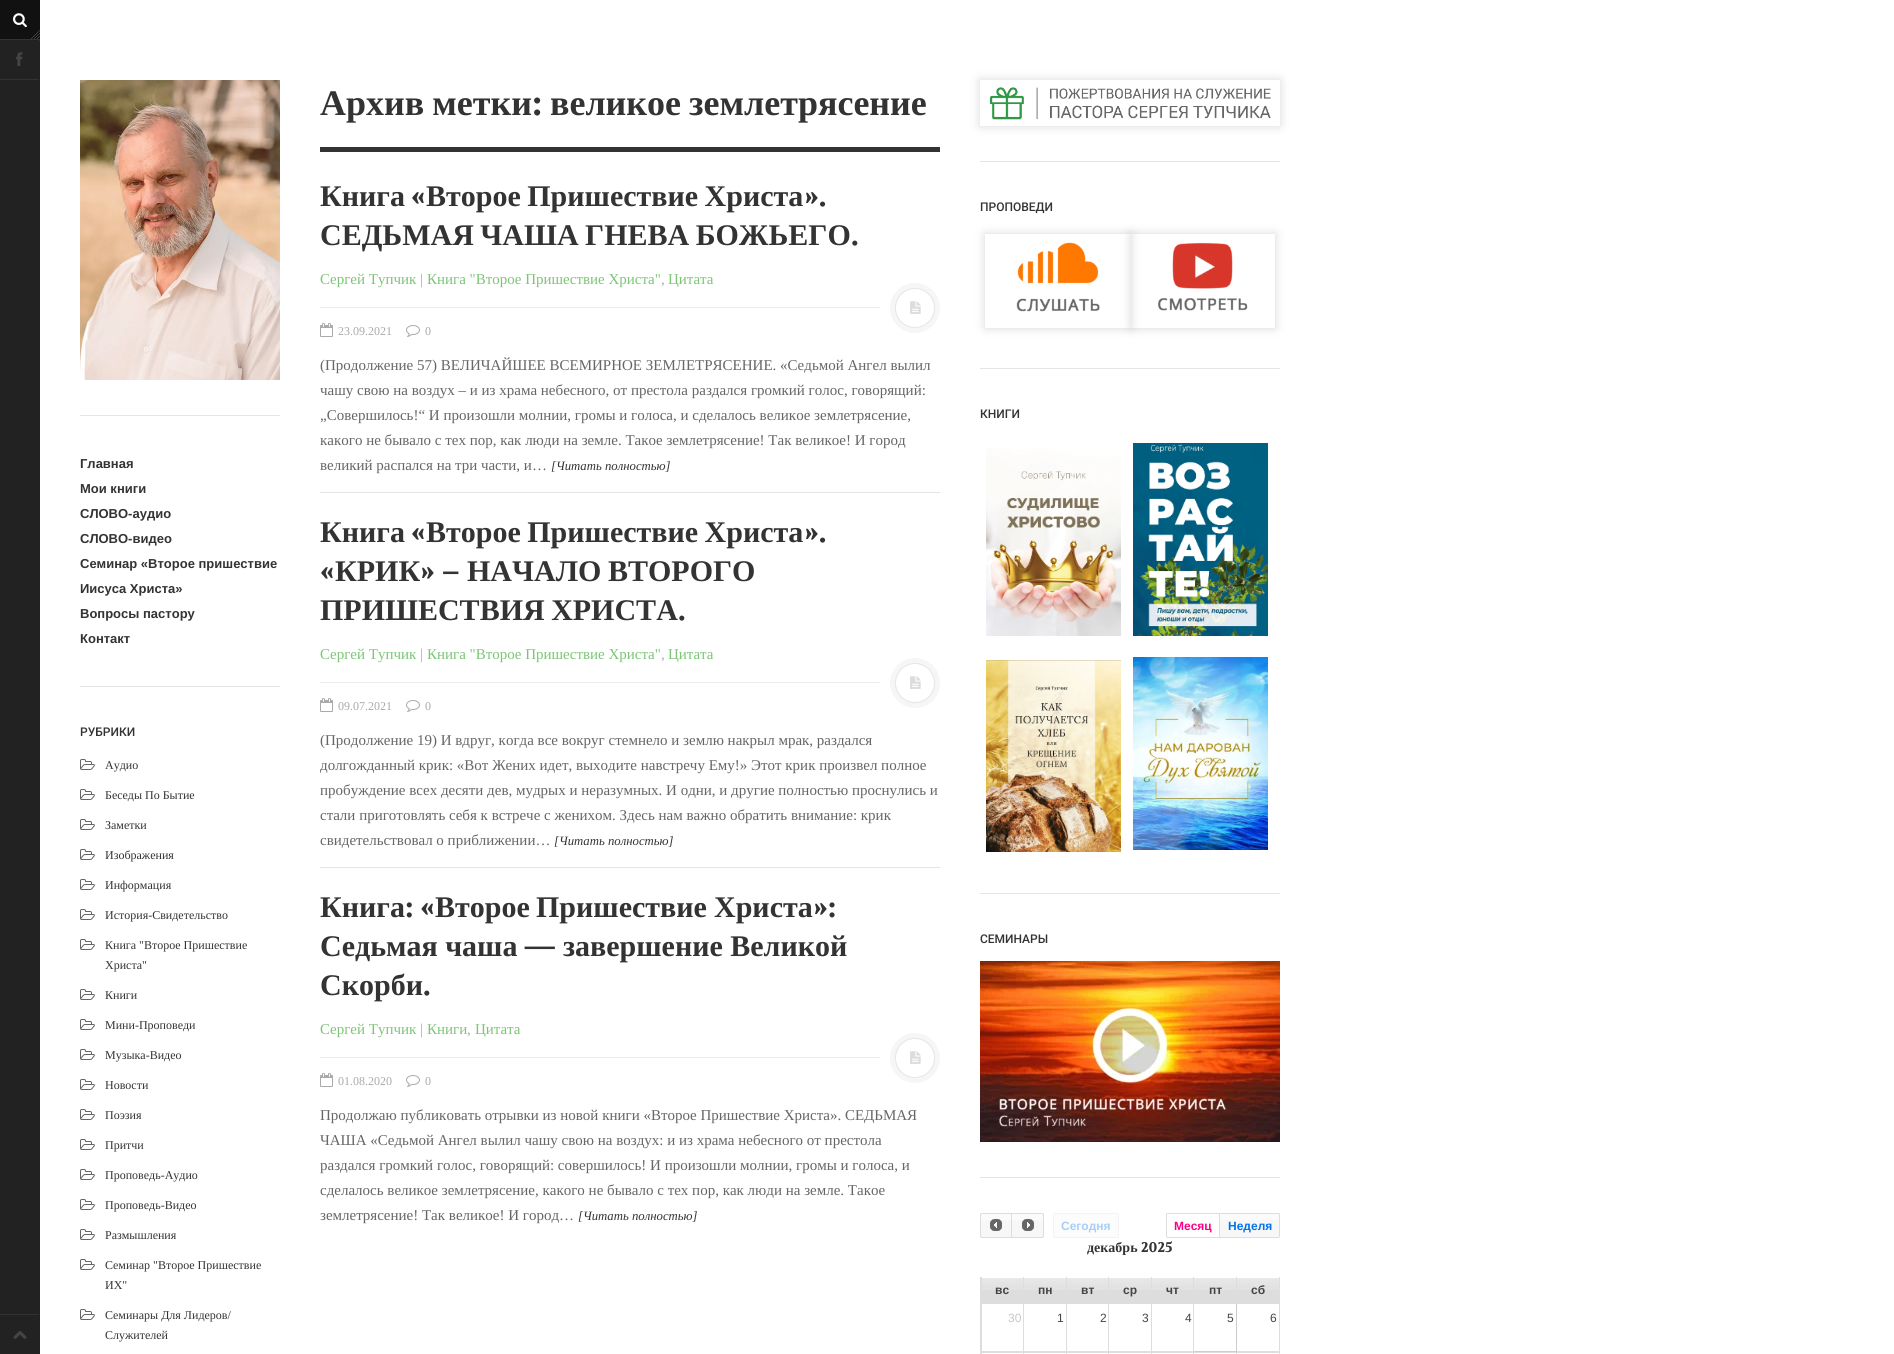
import math
import cairo

surface = cairo.ImageSurface(cairo.FORMAT_RGB24, 1894, 1354)
ctx = cairo.Context(surface)
options = cairo.FontOptions()
options.set_hint_metrics(cairo.HINT_METRICS_OFF)
options.set_hint_style(cairo.HINT_STYLE_NONE)
ctx.set_font_options(options)
ctx.set_miter_limit(4)


def spaced_text(x, y, s, letter, word):
    ctx.move_to(x, y)
    for ch in s:
        ctx.show_text(ch)
        ctx.rel_move_to(letter + word * (ch == ' '), 0)


def round_rect(x, y, w, h, r):
    ctx.new_sub_path()
    for i, (u, v) in enumerate([(x + w - r, y + h - r), (x + r, y + h - r), (x + r, y + r), (x + w - r, y + r)]):
        ctx.arc(u, v, r, i * math.pi / 2, (i + 1) * math.pi / 2)
    ctx.close_path()


def shadow(x, y, w, h, r, blur, alpha):
    ctx.push_group_with_content(cairo.CONTENT_ALPHA)
    ctx.set_operator(cairo.OPERATOR_SOURCE)
    for i in range(15, -16, -2):
        e = blur * i / 6
        if min(w, h) + 2 * e > 0:
            ctx.set_source_rgba(0, 0, 0, alpha * math.erfc((i - 1) / 8.5) / 2)
            round_rect(x - e, y - e, w + 2 * e, h + 2 * e, max(0, min(r + e + blur * .6, min(w, h) / 2 + e)))
            ctx.fill()
    ctx.mask(ctx.pop_group())


def picture(path, x, y, w, h):
    ctx.save()
    ctx.set_source_surface(cairo.ImageSurface.create_from_png(path), x, y)
    ctx.rectangle(x, y, w, h)
    ctx.fill()
    ctx.restore()


ctx.set_source_rgb(1, 1, 1)
ctx.paint()
ctx.set_source_rgb(0.133, 0.133, 0.133)
ctx.rectangle(0, 41, 40, 1313)
ctx.fill()
ctx.set_source_rgb(0.2, 0.2, 0.2)
ctx.rectangle(0, 39, 40, 1)
ctx.fill()
ctx.set_source_rgb(0.067, 0.067, 0.067)
ctx.rectangle(0, 0, 40, 39)
ctx.fill()
picture("img1.png", 31, 30, 9, 9)
picture("img2.png", 13, 13, 14, 15)
ctx.set_source_rgb(0.2, 0.2, 0.2)
ctx.rectangle(39, 40, 1, 1)
ctx.fill()
ctx.rectangle(0, 79, 39, 1)
ctx.fill()
ctx.set_source_rgb(0.133, 0.133, 0.133)
ctx.rectangle(0, 40, 39, 1)
ctx.fill()
picture("img3.png", 16, 52, 7, 14)
ctx.set_source_rgb(0.2, 0.2, 0.2)
ctx.rectangle(0, 1314, 39, 1)
ctx.fill()
picture("img4.png", 13, 1331, 14, 8)
picture("img5.png", 80, 80, 200, 300)
ctx.set_source_rgb(0.898, 0.898, 0.898)
ctx.rectangle(80, 415, 200, 1)
ctx.fill()
ctx.select_font_face("Liberation Sans", cairo.FONT_SLANT_NORMAL, cairo.FONT_WEIGHT_BOLD)
ctx.set_font_size(13)
ctx.set_source_rgb(0.2, 0.2, 0.2)
ctx.move_to(80, 468)
ctx.show_text("Главная")
ctx.move_to(80, 493)
ctx.show_text("Мои книги")
ctx.move_to(80, 518)
ctx.show_text("СЛОВО-аудио")
ctx.move_to(80, 543)
ctx.show_text("СЛОВО-видео")
ctx.move_to(80, 568)
ctx.show_text("Семинар «Второе пришествие")
ctx.move_to(80, 593)
ctx.show_text("Иисуса Христа»")
ctx.move_to(80, 618)
ctx.show_text("Вопросы пастору")
ctx.move_to(80, 643)
ctx.show_text("Контакт")
ctx.set_source_rgb(0.898, 0.898, 0.898)
ctx.rectangle(80, 686, 200, 1)
ctx.fill()
ctx.select_font_face("Roboto Medium")
ctx.set_font_size(12)
ctx.set_source_rgb(0.2, 0.2, 0.2)
ctx.move_to(80, 736)
ctx.show_text("РУБРИКИ")
picture("img6.png", 80, 759, 15, 11)
ctx.select_font_face("Liberation Serif")
ctx.move_to(105, 769)
ctx.show_text("Аудио")
picture("img6.png", 80, 789, 15, 11)
ctx.move_to(105, 799)
ctx.show_text("Беседы По Бытие")
picture("img6.png", 80, 819, 15, 11)
ctx.move_to(105, 829)
ctx.show_text("Заметки")
picture("img6.png", 80, 849, 15, 11)
ctx.move_to(105, 859)
ctx.show_text("Изображения")
picture("img6.png", 80, 879, 15, 11)
ctx.move_to(105, 889)
ctx.show_text("Информация")
picture("img6.png", 80, 909, 15, 11)
ctx.move_to(105, 919)
ctx.show_text("История-Свидетельство")
picture("img6.png", 80, 939, 15, 11)
ctx.move_to(105, 949)
ctx.show_text("Книга \"Второе Пришествие")
ctx.move_to(105, 969)
ctx.show_text("Христа\"")
picture("img6.png", 80, 989, 15, 11)
ctx.move_to(105, 999)
ctx.show_text("Книги")
picture("img6.png", 80, 1019, 15, 11)
ctx.move_to(105, 1029)
ctx.show_text("Мини-Проповеди")
picture("img6.png", 80, 1049, 15, 11)
ctx.move_to(105, 1059)
ctx.show_text("Музыка-Видео")
picture("img6.png", 80, 1079, 15, 11)
ctx.move_to(105, 1089)
ctx.show_text("Новости")
picture("img6.png", 80, 1109, 15, 11)
ctx.move_to(105, 1119)
ctx.show_text("Поэзия")
picture("img6.png", 80, 1139, 15, 11)
ctx.move_to(105, 1149)
ctx.show_text("Притчи")
picture("img6.png", 80, 1169, 15, 11)
ctx.move_to(105, 1179)
ctx.show_text("Проповедь-Аудио")
picture("img6.png", 80, 1199, 15, 11)
ctx.move_to(105, 1209)
ctx.show_text("Проповедь-Видео")
picture("img6.png", 80, 1229, 15, 11)
ctx.move_to(105, 1239)
ctx.show_text("Размышления")
picture("img6.png", 80, 1259, 15, 11)
ctx.move_to(105, 1269)
ctx.show_text("Семинар \"Второе Пришествие")
ctx.move_to(105, 1289)
ctx.show_text("ИХ\"")
picture("img6.png", 80, 1309, 15, 11)
ctx.move_to(105, 1319)
ctx.show_text("Семинары Для Лидеров/")
ctx.move_to(105, 1339)
ctx.show_text("Служителей")
ctx.rectangle(320, 147, 620, 5)
ctx.fill()
ctx.select_font_face("Liberation Serif", cairo.FONT_SLANT_NORMAL, cairo.FONT_WEIGHT_BOLD)
ctx.set_font_size(36)
spaced_text(320, 115, "Архив метки", 0, -1)
ctx.select_font_face("Volkhov", cairo.FONT_SLANT_NORMAL, cairo.FONT_WEIGHT_BOLD)
ctx.move_to(532, 115)
ctx.show_text(":")
ctx.select_font_face("Liberation Serif", cairo.FONT_SLANT_NORMAL, cairo.FONT_WEIGHT_BOLD)
spaced_text(550, 115, "великое землетрясение", 0, -1)
ctx.set_font_size(30)
ctx.move_to(320, 206)
ctx.show_text("Книга")
ctx.select_font_face("Volkhov", cairo.FONT_SLANT_NORMAL, cairo.FONT_WEIGHT_BOLD)
ctx.move_to(411, 206)
ctx.show_text("«")
ctx.select_font_face("Liberation Serif", cairo.FONT_SLANT_NORMAL, cairo.FONT_WEIGHT_BOLD)
spaced_text(426, 206, "Второе Пришествие Христа", 0, -1)
ctx.select_font_face("Volkhov", cairo.FONT_SLANT_NORMAL, cairo.FONT_WEIGHT_BOLD)
ctx.move_to(804, 206)
ctx.show_text("».")
ctx.select_font_face("Liberation Serif", cairo.FONT_SLANT_NORMAL, cairo.FONT_WEIGHT_BOLD)
spaced_text(320, 245, "СЕДЬМАЯ ЧАША ГНЕВА БОЖЬЕГО", 0, -1)
ctx.select_font_face("Volkhov", cairo.FONT_SLANT_NORMAL, cairo.FONT_WEIGHT_BOLD)
ctx.move_to(851, 245)
ctx.show_text(".")
ctx.select_font_face("Liberation Serif")
ctx.set_font_size(15)
ctx.set_source_rgb(0.486, 0.773, 0.463)
ctx.move_to(320, 284)
ctx.show_text("Сергей Тупчик")
ctx.set_source_rgb(0.667, 0.667, 0.667)
ctx.move_to(420, 284)
ctx.show_text("|")
ctx.set_source_rgb(0.486, 0.773, 0.463)
ctx.move_to(427, 284)
ctx.show_text("Книга \"Второе Пришествие Христа\"")
ctx.set_source_rgb(0.667, 0.667, 0.667)
ctx.move_to(661, 284)
ctx.show_text(",")
ctx.set_source_rgb(0.486, 0.773, 0.463)
ctx.move_to(668, 284)
ctx.show_text("Цитата")
ctx.set_source_rgb(0.925, 0.925, 0.925)
ctx.rectangle(320, 307, 560, 1)
ctx.fill()
ctx.set_source_rgb(0.961, 0.961, 0.961)
ctx.arc(915, 308, 25, 0, 2 * math.pi)
ctx.fill()
ctx.set_source_rgb(1, 1, 1)
ctx.arc(915, 308, 19.5, 0, 2 * math.pi)
ctx.fill_preserve()
ctx.set_source_rgb(0.898, 0.898, 0.898)
ctx.set_line_width(1)
ctx.stroke()
picture("img7.png", 910, 301, 11, 13)
picture("img8.png", 320, 323, 13, 14)
ctx.set_font_size(12)
ctx.set_source_rgb(0.667, 0.667, 0.667)
ctx.move_to(338, 335)
ctx.show_text("23.09.2021")
picture("img9.png", 406, 325, 14, 12)
ctx.move_to(425, 335)
ctx.show_text("0")
ctx.set_font_size(15)
ctx.set_source_rgb(0.4, 0.4, 0.4)
ctx.move_to(320, 370)
ctx.show_text("(Продолжение 57) ВЕЛИЧАЙШЕЕ ВСЕМИРНОЕ ЗЕМЛЕТРЯСЕНИЕ. «Седьмой Ангел вылил")
ctx.move_to(320, 395)
ctx.show_text("чашу свою на воздух – и из храма небесного, от престола раздался громкий голос, говорящий:")
ctx.move_to(320, 420)
ctx.show_text("„Совершилось!“ И произошли молнии, громы и голоса, и сделалось великое землетрясение,")
ctx.move_to(320, 445)
ctx.show_text("какого не бывало с тех пор, как люди на земле. Такое землетрясение! Так великое! И город")
ctx.move_to(320, 470)
ctx.show_text("великий распался на три части, и…")
ctx.select_font_face("Liberation Serif", cairo.FONT_SLANT_ITALIC)
ctx.set_font_size(12.75)
ctx.set_source_rgb(0.2, 0.2, 0.2)
ctx.move_to(551, 470)
ctx.show_text("[Читать полностью]")
ctx.set_source_rgb(0.898, 0.898, 0.898)
ctx.rectangle(320, 492, 620, 1)
ctx.fill()
ctx.select_font_face("Liberation Serif", cairo.FONT_SLANT_NORMAL, cairo.FONT_WEIGHT_BOLD)
ctx.set_font_size(30)
ctx.set_source_rgb(0.2, 0.2, 0.2)
ctx.move_to(320, 542)
ctx.show_text("Книга")
ctx.select_font_face("Volkhov", cairo.FONT_SLANT_NORMAL, cairo.FONT_WEIGHT_BOLD)
ctx.move_to(411, 542)
ctx.show_text("«")
ctx.select_font_face("Liberation Serif", cairo.FONT_SLANT_NORMAL, cairo.FONT_WEIGHT_BOLD)
spaced_text(426, 542, "Второе Пришествие Христа", 0, -1)
ctx.select_font_face("Volkhov", cairo.FONT_SLANT_NORMAL, cairo.FONT_WEIGHT_BOLD)
ctx.move_to(804, 542)
ctx.show_text("».")
ctx.move_to(320, 581)
ctx.show_text("«")
ctx.select_font_face("Liberation Serif", cairo.FONT_SLANT_NORMAL, cairo.FONT_WEIGHT_BOLD)
ctx.move_to(335, 581)
ctx.show_text("КРИК")
ctx.select_font_face("Volkhov", cairo.FONT_SLANT_NORMAL, cairo.FONT_WEIGHT_BOLD)
ctx.move_to(420, 581)
ctx.show_text("» –")
ctx.select_font_face("Liberation Serif", cairo.FONT_SLANT_NORMAL, cairo.FONT_WEIGHT_BOLD)
ctx.move_to(467, 581)
ctx.show_text("НАЧАЛО")
ctx.move_to(608, 581)
ctx.show_text("ВТОРОГО")
spaced_text(320, 620, "ПРИШЕСТВИЯ ХРИСТА", 0, -1)
ctx.select_font_face("Volkhov", cairo.FONT_SLANT_NORMAL, cairo.FONT_WEIGHT_BOLD)
ctx.move_to(678, 620)
ctx.show_text(".")
ctx.select_font_face("Liberation Serif")
ctx.set_font_size(15)
ctx.set_source_rgb(0.486, 0.773, 0.463)
ctx.move_to(320, 659)
ctx.show_text("Сергей Тупчик")
ctx.set_source_rgb(0.667, 0.667, 0.667)
ctx.move_to(420, 659)
ctx.show_text("|")
ctx.set_source_rgb(0.486, 0.773, 0.463)
ctx.move_to(427, 659)
ctx.show_text("Книга \"Второе Пришествие Христа\"")
ctx.set_source_rgb(0.667, 0.667, 0.667)
ctx.move_to(661, 659)
ctx.show_text(",")
ctx.set_source_rgb(0.486, 0.773, 0.463)
ctx.move_to(668, 659)
ctx.show_text("Цитата")
ctx.set_source_rgb(0.925, 0.925, 0.925)
ctx.rectangle(320, 682, 560, 1)
ctx.fill()
ctx.set_source_rgb(0.961, 0.961, 0.961)
ctx.arc(915, 683, 25, 0, 2 * math.pi)
ctx.fill()
ctx.set_source_rgb(1, 1, 1)
ctx.arc(915, 683, 19.5, 0, 2 * math.pi)
ctx.fill_preserve()
ctx.set_source_rgb(0.898, 0.898, 0.898)
ctx.stroke()
picture("img7.png", 910, 676, 11, 13)
picture("img8.png", 320, 698, 13, 14)
ctx.set_font_size(12)
ctx.set_source_rgb(0.667, 0.667, 0.667)
ctx.move_to(338, 710)
ctx.show_text("09.07.2021")
picture("img9.png", 406, 700, 14, 12)
ctx.move_to(425, 710)
ctx.show_text("0")
ctx.set_font_size(15)
ctx.set_source_rgb(0.4, 0.4, 0.4)
ctx.move_to(320, 745)
ctx.show_text("(Продолжение 19) И вдруг, когда все вокруг стемнело и землю накрыл мрак, раздался")
ctx.move_to(320, 770)
ctx.show_text("долгожданный крик: «Вот Жених идет, выходите навстречу Ему!» Этот крик произвел полное")
ctx.move_to(320, 795)
ctx.show_text("пробуждение всех десяти дев, мудрых и неразумных. И одни, и другие полностью проснулись и")
ctx.move_to(320, 820)
ctx.show_text("стали приготовлять себя к встрече с женихом. Здесь нам важно обратить внимание: крик")
ctx.move_to(320, 845)
ctx.show_text("свидетельствовал о приближении…")
ctx.select_font_face("Liberation Serif", cairo.FONT_SLANT_ITALIC)
ctx.set_font_size(12.75)
ctx.set_source_rgb(0.2, 0.2, 0.2)
ctx.move_to(554, 845)
ctx.show_text("[Читать полностью]")
ctx.set_source_rgb(0.898, 0.898, 0.898)
ctx.rectangle(320, 867, 620, 1)
ctx.fill()
ctx.select_font_face("Liberation Serif", cairo.FONT_SLANT_NORMAL, cairo.FONT_WEIGHT_BOLD)
ctx.set_font_size(30)
ctx.set_source_rgb(0.2, 0.2, 0.2)
ctx.move_to(320, 917)
ctx.show_text("Книга")
ctx.select_font_face("Volkhov", cairo.FONT_SLANT_NORMAL, cairo.FONT_WEIGHT_BOLD)
ctx.move_to(405, 917)
ctx.show_text(": «")
ctx.select_font_face("Liberation Serif", cairo.FONT_SLANT_NORMAL, cairo.FONT_WEIGHT_BOLD)
ctx.move_to(435, 917)
ctx.show_text("Второе")
ctx.move_to(536, 917)
ctx.show_text("Пришествие")
ctx.move_to(714, 917)
ctx.show_text("Христа")
ctx.select_font_face("Volkhov", cairo.FONT_SLANT_NORMAL, cairo.FONT_WEIGHT_BOLD)
ctx.move_to(813, 917)
ctx.show_text("»:")
ctx.select_font_face("Liberation Serif", cairo.FONT_SLANT_NORMAL, cairo.FONT_WEIGHT_BOLD)
ctx.move_to(320, 956)
ctx.show_text("Седьмая чаша")
ctx.select_font_face("Volkhov", cairo.FONT_SLANT_NORMAL, cairo.FONT_WEIGHT_BOLD)
ctx.move_to(523, 956)
ctx.show_text("—")
ctx.select_font_face("Liberation Serif", cairo.FONT_SLANT_NORMAL, cairo.FONT_WEIGHT_BOLD)
ctx.move_to(563, 956)
ctx.show_text("завершение Великой")
ctx.move_to(320, 995)
ctx.show_text("Скорби")
ctx.select_font_face("Volkhov", cairo.FONT_SLANT_NORMAL, cairo.FONT_WEIGHT_BOLD)
ctx.move_to(423, 995)
ctx.show_text(".")
ctx.select_font_face("Liberation Serif")
ctx.set_font_size(15)
ctx.set_source_rgb(0.486, 0.773, 0.463)
ctx.move_to(320, 1034)
ctx.show_text("Сергей Тупчик")
ctx.set_source_rgb(0.667, 0.667, 0.667)
ctx.move_to(420, 1034)
ctx.show_text("|")
ctx.set_source_rgb(0.486, 0.773, 0.463)
ctx.move_to(427, 1034)
ctx.show_text("Книги")
ctx.set_source_rgb(0.667, 0.667, 0.667)
ctx.move_to(467, 1034)
ctx.show_text(",")
ctx.set_source_rgb(0.486, 0.773, 0.463)
ctx.move_to(475, 1034)
ctx.show_text("Цитата")
ctx.set_source_rgb(0.925, 0.925, 0.925)
ctx.rectangle(320, 1057, 560, 1)
ctx.fill()
ctx.set_source_rgb(0.961, 0.961, 0.961)
ctx.arc(915, 1058, 25, 0, 2 * math.pi)
ctx.fill()
ctx.set_source_rgb(1, 1, 1)
ctx.arc(915, 1058, 19.5, 0, 2 * math.pi)
ctx.fill_preserve()
ctx.set_source_rgb(0.898, 0.898, 0.898)
ctx.stroke()
picture("img7.png", 910, 1051, 11, 13)
picture("img8.png", 320, 1073, 13, 14)
ctx.set_font_size(12)
ctx.set_source_rgb(0.667, 0.667, 0.667)
ctx.move_to(338, 1085)
ctx.show_text("01.08.2020")
picture("img9.png", 406, 1075, 14, 12)
ctx.move_to(425, 1085)
ctx.show_text("0")
ctx.set_font_size(15)
ctx.set_source_rgb(0.4, 0.4, 0.4)
ctx.move_to(320, 1120)
ctx.show_text("Продолжаю публиковать отрывки из новой книги «Второе Пришествие Христа». СЕДЬМАЯ")
ctx.move_to(320, 1145)
ctx.show_text("ЧАША «Седьмой Ангел вылил чашу свою на воздух: и из храма небесного от престола")
ctx.move_to(320, 1170)
ctx.show_text("раздался громкий голос, говорящий: совершилось! И произошли молнии, громы и голоса, и")
ctx.move_to(320, 1195)
ctx.show_text("сделалось великое землетрясение, какого не бывало с тех пор, как люди на земле. Такое")
ctx.move_to(320, 1220)
ctx.show_text("землетрясение! Так великое! И город…")
ctx.select_font_face("Liberation Serif", cairo.FONT_SLANT_ITALIC)
ctx.set_font_size(12.75)
ctx.set_source_rgb(0.2, 0.2, 0.2)
ctx.move_to(578, 1220)
ctx.show_text("[Читать полностью]")
ctx.save()
ctx.set_fill_rule(cairo.FILL_RULE_EVEN_ODD)
ctx.new_path()
ctx.move_to(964, 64)
ctx.line_to(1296, 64)
ctx.line_to(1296, 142)
ctx.line_to(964, 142)
ctx.close_path()
ctx.move_to(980, 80)
ctx.line_to(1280, 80)
ctx.line_to(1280, 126)
ctx.line_to(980, 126)
ctx.close_path()
ctx.clip()
ctx.set_source_rgb(0.196, 0.196, 0.196)
shadow(980, 80, 300, 46, 0, 5, 0.2)
ctx.restore()
picture("img10.png", 989, 87, 282, 33)
ctx.set_source_rgb(0.898, 0.898, 0.898)
ctx.rectangle(980, 161, 300, 1)
ctx.fill()
ctx.select_font_face("Roboto Medium")
ctx.set_font_size(12)
ctx.set_source_rgb(0.2, 0.2, 0.2)
ctx.move_to(980, 211)
ctx.show_text("ПРОПОВЕДИ")
ctx.save()
ctx.set_fill_rule(cairo.FILL_RULE_EVEN_ODD)
ctx.new_path()
ctx.move_to(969, 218)
ctx.line_to(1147, 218)
ctx.line_to(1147, 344)
ctx.line_to(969, 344)
ctx.close_path()
ctx.move_to(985, 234)
ctx.line_to(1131, 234)
ctx.line_to(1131, 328)
ctx.line_to(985, 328)
ctx.close_path()
ctx.clip()
ctx.set_source_rgb(0.196, 0.196, 0.196)
shadow(985, 234, 146, 94, 0, 5, 0.2)
ctx.restore()
picture("img11.png", 1016, 242, 84, 70)
ctx.save()
ctx.set_fill_rule(cairo.FILL_RULE_EVEN_ODD)
ctx.new_path()
ctx.move_to(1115, 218)
ctx.line_to(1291, 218)
ctx.line_to(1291, 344)
ctx.line_to(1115, 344)
ctx.close_path()
ctx.move_to(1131, 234)
ctx.line_to(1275, 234)
ctx.line_to(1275, 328)
ctx.line_to(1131, 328)
ctx.close_path()
ctx.clip()
ctx.set_source_rgb(0.196, 0.196, 0.196)
shadow(1131, 234, 144, 94, 0, 5, 0.2)
ctx.restore()
picture("img12.png", 1158, 242, 90, 69)
ctx.set_source_rgb(0.898, 0.898, 0.898)
ctx.rectangle(980, 368, 300, 1)
ctx.fill()
ctx.set_source_rgb(0.2, 0.2, 0.2)
ctx.move_to(980, 418)
ctx.show_text("КНИГИ")
picture("img13.png", 986, 448, 135, 188)
picture("img14.png", 1133, 443, 135, 193)
picture("img15.png", 986, 660, 135, 192)
picture("img16.png", 1133, 657, 135, 193)
ctx.set_source_rgb(0.898, 0.898, 0.898)
ctx.rectangle(980, 893, 300, 1)
ctx.fill()
ctx.set_source_rgb(0.2, 0.2, 0.2)
ctx.move_to(980, 943)
ctx.show_text("СЕМИНАРЫ")
picture("img17.png", 980, 961, 300, 181)
ctx.set_source_rgb(0.898, 0.898, 0.898)
ctx.rectangle(980, 1177, 300, 1)
ctx.fill()
ctx.set_source_rgb(0.965, 0.965, 0.965)
ctx.new_path()
ctx.move_to(982, 1213)
ctx.line_to(1012, 1213)
ctx.line_to(1012, 1238)
ctx.line_to(982, 1238)
ctx.curve_to(981, 1238, 980, 1237, 980, 1236)
ctx.line_to(980, 1215)
ctx.curve_to(980, 1214, 981, 1213, 982, 1213)
ctx.close_path()
ctx.fill()
ctx.set_source_rgb(0.988, 0.984, 0.988)
ctx.rectangle(980, 1213, 32, 7)
ctx.fill()
ctx.new_path()
ctx.move_to(982, 1213.5)
ctx.line_to(1011.5, 1213.5)
ctx.line_to(1011.5, 1237.5)
ctx.line_to(982, 1237.5)
ctx.curve_to(981, 1237.5, 980.5, 1237, 980.5, 1236)
ctx.line_to(980.5, 1215)
ctx.curve_to(980.5, 1214, 981, 1213.5, 982, 1213.5)
ctx.close_path()
ctx.set_source_rgb(0.867, 0.867, 0.867)
ctx.stroke()
picture("img18.png", 990, 1219, 12, 12)
ctx.set_source_rgb(0.965, 0.965, 0.965)
ctx.new_path()
ctx.move_to(1011, 1213)
ctx.line_to(1042, 1213)
ctx.curve_to(1043, 1213, 1044, 1214, 1044, 1215)
ctx.line_to(1044, 1236)
ctx.curve_to(1044, 1237, 1043, 1238, 1042, 1238)
ctx.line_to(1011, 1238)
ctx.close_path()
ctx.fill()
ctx.set_source_rgb(0.988, 0.984, 0.988)
ctx.rectangle(1011, 1213, 33, 7)
ctx.fill()
ctx.new_path()
ctx.move_to(1011.5, 1213.5)
ctx.line_to(1042, 1213.5)
ctx.curve_to(1043, 1213.5, 1043.5, 1214, 1043.5, 1215)
ctx.line_to(1043.5, 1236)
ctx.curve_to(1043.5, 1237, 1043, 1237.5, 1042, 1237.5)
ctx.line_to(1011.5, 1237.5)
ctx.close_path()
ctx.set_source_rgb(0.867, 0.867, 0.867)
ctx.stroke()
picture("img19.png", 1022, 1219, 12, 12)
ctx.set_source_rgb(0.988, 0.988, 0.988)
round_rect(1053.5, 1213.5, 65, 24, 1.5)
ctx.fill_preserve()
ctx.set_source_rgb(0.953, 0.953, 0.953)
ctx.stroke()
ctx.select_font_face("Liberation Sans", cairo.FONT_SLANT_NORMAL, cairo.FONT_WEIGHT_BOLD)
ctx.set_source_rgb(0.651, 0.808, 0.973)
ctx.move_to(1061, 1230)
ctx.show_text("Сегодня")
ctx.set_source_rgb(0.965, 0.965, 0.965)
ctx.new_path()
ctx.move_to(1219, 1213)
ctx.line_to(1278, 1213)
ctx.curve_to(1279, 1213, 1280, 1214, 1280, 1215)
ctx.line_to(1280, 1236)
ctx.curve_to(1280, 1237, 1279, 1238, 1278, 1238)
ctx.line_to(1219, 1238)
ctx.close_path()
ctx.fill()
ctx.set_source_rgb(0.988, 0.984, 0.988)
ctx.rectangle(1219, 1213, 61, 7)
ctx.fill()
ctx.new_path()
ctx.move_to(1219.5, 1213.5)
ctx.line_to(1278, 1213.5)
ctx.curve_to(1279, 1213.5, 1279.5, 1214, 1279.5, 1215)
ctx.line_to(1279.5, 1236)
ctx.curve_to(1279.5, 1237, 1279, 1237.5, 1278, 1237.5)
ctx.line_to(1219.5, 1237.5)
ctx.close_path()
ctx.set_source_rgb(0.867, 0.867, 0.867)
ctx.stroke()
ctx.set_source_rgb(1, 1, 1)
ctx.new_path()
ctx.move_to(1168, 1213.5)
ctx.line_to(1219.5, 1213.5)
ctx.line_to(1219.5, 1237.5)
ctx.line_to(1168, 1237.5)
ctx.curve_to(1167, 1237.5, 1166.5, 1237, 1166.5, 1236)
ctx.line_to(1166.5, 1215)
ctx.curve_to(1166.5, 1214, 1167, 1213.5, 1168, 1213.5)
ctx.close_path()
ctx.fill_preserve()
ctx.set_source_rgb(0.867, 0.867, 0.867)
ctx.stroke()
ctx.set_source_rgb(1, 0, 0.518)
ctx.move_to(1174, 1230)
ctx.show_text("Месяц")
ctx.set_source_rgb(0, 0.451, 0.918)
ctx.move_to(1228, 1230)
ctx.show_text("Неделя")
ctx.select_font_face("Liberation Serif", cairo.FONT_SLANT_NORMAL, cairo.FONT_WEIGHT_BOLD)
ctx.set_font_size(14)
ctx.set_source_rgb(0.2, 0.2, 0.2)
ctx.move_to(1087, 1252)
ctx.show_text("декабрь")
ctx.select_font_face("Volkhov", cairo.FONT_SLANT_NORMAL, cairo.FONT_WEIGHT_BOLD)
ctx.move_to(1141, 1252)
ctx.show_text("2025")
ctx.set_source_rgb(0.867, 0.867, 0.867)
ctx.rectangle(982, 1290, 41, 13)
ctx.fill()
picture("img20.png", 982, 1278, 41, 12)
ctx.rectangle(981, 1277, 1, 26)
ctx.fill()
ctx.select_font_face("Liberation Sans", cairo.FONT_SLANT_NORMAL, cairo.FONT_WEIGHT_BOLD)
ctx.set_font_size(12)
ctx.set_source_rgb(0.267, 0.267, 0.267)
ctx.move_to(995, 1294)
ctx.show_text("вс")
ctx.set_source_rgb(0.867, 0.867, 0.867)
ctx.rectangle(1024, 1290, 42, 13)
ctx.fill()
picture("img21.png", 1024, 1278, 42, 12)
ctx.rectangle(1023, 1277, 1, 26)
ctx.fill()
ctx.set_source_rgb(0.267, 0.267, 0.267)
ctx.move_to(1038, 1294)
ctx.show_text("пн")
ctx.set_source_rgb(0.867, 0.867, 0.867)
ctx.rectangle(1067, 1290, 41, 13)
ctx.fill()
picture("img20.png", 1067, 1278, 41, 12)
ctx.rectangle(1066, 1277, 1, 26)
ctx.fill()
ctx.set_source_rgb(0.267, 0.267, 0.267)
ctx.move_to(1081, 1294)
ctx.show_text("вт")
ctx.set_source_rgb(0.867, 0.867, 0.867)
ctx.rectangle(1109, 1290, 42, 13)
ctx.fill()
picture("img21.png", 1109, 1278, 42, 12)
ctx.rectangle(1108, 1277, 1, 26)
ctx.fill()
ctx.set_source_rgb(0.267, 0.267, 0.267)
ctx.move_to(1123, 1294)
ctx.show_text("ср")
ctx.set_source_rgb(0.867, 0.867, 0.867)
ctx.rectangle(1152, 1290, 41, 13)
ctx.fill()
picture("img20.png", 1152, 1278, 41, 12)
ctx.rectangle(1151, 1277, 1, 26)
ctx.fill()
ctx.set_source_rgb(0.267, 0.267, 0.267)
ctx.move_to(1166, 1294)
ctx.show_text("чт")
ctx.set_source_rgb(0.867, 0.867, 0.867)
ctx.rectangle(1194, 1290, 42, 13)
ctx.fill()
picture("img21.png", 1194, 1278, 42, 12)
ctx.rectangle(1193, 1277, 1, 26)
ctx.fill()
ctx.set_source_rgb(0.267, 0.267, 0.267)
ctx.move_to(1209, 1294)
ctx.show_text("пт")
ctx.set_source_rgb(0.867, 0.867, 0.867)
ctx.rectangle(1237, 1290, 42, 13)
ctx.fill()
picture("img21.png", 1237, 1278, 42, 12)
ctx.rectangle(1236, 1277, 1, 26)
ctx.fill()
ctx.set_source_rgb(0.267, 0.267, 0.267)
ctx.move_to(1251, 1294)
ctx.show_text("сб")
ctx.set_source_rgb(0.867, 0.867, 0.867)
ctx.rectangle(980, 1303, 300, 1)
ctx.fill()
ctx.rectangle(1279, 1277, 1, 77)
ctx.fill()
ctx.rectangle(980, 1277, 1, 77)
ctx.fill()
ctx.rectangle(1236, 1351, 43, 2)
ctx.fill()
ctx.set_source_rgb(0.8, 0.8, 0.8)
ctx.rectangle(1236, 1304, 1, 48)
ctx.fill()
ctx.rectangle(1193, 1351, 44, 1)
ctx.fill()
ctx.set_source_rgb(0.867, 0.867, 0.867)
ctx.rectangle(1193, 1304, 1, 48)
ctx.fill()
ctx.rectangle(1151, 1351, 43, 1)
ctx.fill()
ctx.rectangle(1151, 1304, 1, 48)
ctx.fill()
ctx.rectangle(1108, 1351, 44, 1)
ctx.fill()
ctx.rectangle(1108, 1304, 1, 48)
ctx.fill()
ctx.rectangle(1066, 1351, 43, 1)
ctx.fill()
ctx.rectangle(1066, 1304, 1, 48)
ctx.fill()
ctx.rectangle(1023, 1351, 44, 1)
ctx.fill()
ctx.rectangle(1023, 1304, 1, 48)
ctx.fill()
ctx.rectangle(981, 1351, 43, 1)
ctx.fill()
ctx.rectangle(981, 1304, 1, 48)
ctx.fill()
ctx.select_font_face("Liberation Sans")
ctx.set_source_rgb(0.78, 0.78, 0.78)
ctx.move_to(1008, 1322)
ctx.show_text("30")
ctx.set_source_rgb(0.267, 0.267, 0.267)
ctx.move_to(1057, 1322)
ctx.show_text("1")
ctx.move_to(1100, 1322)
ctx.show_text("2")
ctx.move_to(1142, 1322)
ctx.show_text("3")
ctx.move_to(1185, 1322)
ctx.show_text("4")
ctx.move_to(1227, 1322)
ctx.show_text("5")
ctx.move_to(1270, 1322)
ctx.show_text("6")
ctx.set_source_rgb(0.867, 0.867, 0.867)
ctx.rectangle(1236, 1352, 1, 2)
ctx.fill()
ctx.rectangle(1193, 1352, 44, 1)
ctx.fill()
ctx.rectangle(1193, 1352, 1, 2)
ctx.fill()
ctx.rectangle(1151, 1352, 43, 1)
ctx.fill()
ctx.rectangle(1151, 1352, 1, 2)
ctx.fill()
ctx.rectangle(1108, 1352, 44, 1)
ctx.fill()
ctx.rectangle(1108, 1352, 1, 2)
ctx.fill()
ctx.rectangle(1066, 1352, 43, 1)
ctx.fill()
ctx.rectangle(1066, 1352, 1, 2)
ctx.fill()
ctx.rectangle(1023, 1352, 44, 1)
ctx.fill()
ctx.rectangle(1023, 1352, 1, 2)
ctx.fill()
ctx.rectangle(981, 1352, 43, 1)
ctx.fill()
ctx.rectangle(981, 1352, 1, 2)
ctx.fill()
surface.write_to_png("page.png")
